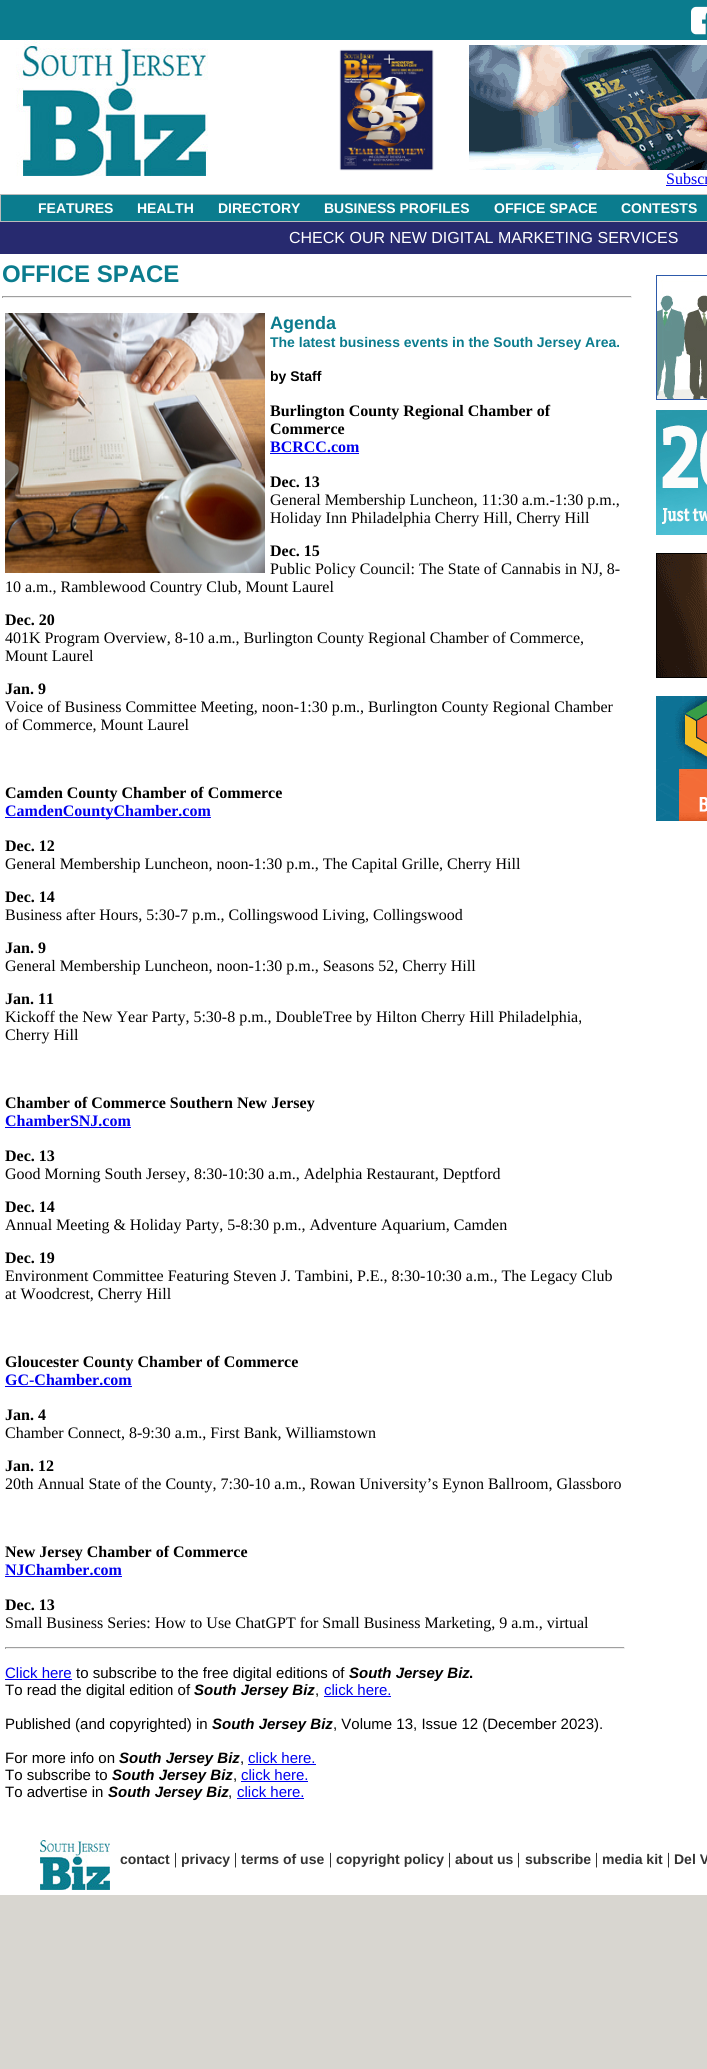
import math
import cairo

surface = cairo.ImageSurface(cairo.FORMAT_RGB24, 707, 2069)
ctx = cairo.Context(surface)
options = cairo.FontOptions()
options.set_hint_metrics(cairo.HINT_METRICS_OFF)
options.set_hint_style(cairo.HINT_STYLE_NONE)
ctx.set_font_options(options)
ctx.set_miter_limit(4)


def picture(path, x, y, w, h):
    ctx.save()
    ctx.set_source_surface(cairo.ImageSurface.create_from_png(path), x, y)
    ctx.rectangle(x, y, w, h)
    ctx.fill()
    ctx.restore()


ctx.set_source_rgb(0.847, 0.839, 0.816)
ctx.paint()
ctx.set_source_rgb(1, 1, 1)
ctx.rectangle(0, 40, 707, 1855)
ctx.fill()
ctx.set_source_rgb(0.043, 0.486, 0.557)
ctx.rectangle(0, 0, 707, 40)
ctx.fill()
picture("img1.png", 691, 6, 16, 29)
picture("img2.png", 16, 40, 192, 136)
picture("img3.png", 339, 49, 95, 122)
picture("img4.png", 469, 45, 238, 125)
ctx.select_font_face("Liberation Serif")
ctx.set_font_size(16)
ctx.set_source_rgb(0, 0, 0.933)
ctx.move_to(666, 184)
ctx.show_text("Subscr")
ctx.rectangle(666, 185, 41, 1)
ctx.fill()
ctx.set_source_rgb(0.043, 0.486, 0.557)
ctx.rectangle(0.5, 194.5, 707, 27)
ctx.fill_preserve()
ctx.set_source_rgb(0.733, 0.733, 0.733)
ctx.set_line_width(1)
ctx.stroke()
ctx.select_font_face("Liberation Sans", cairo.FONT_SLANT_NORMAL, cairo.FONT_WEIGHT_BOLD)
ctx.set_font_size(14)
ctx.set_source_rgb(1, 1, 1)
ctx.move_to(38, 213)
ctx.show_text("FEATURES")
ctx.move_to(137, 213)
ctx.show_text("HEALTH")
ctx.move_to(218, 213)
ctx.show_text("DIRECTORY")
ctx.move_to(324, 213)
ctx.show_text("BUSINESS PROFILES")
ctx.move_to(494, 213)
ctx.show_text("OFFICE SPACE")
ctx.move_to(621, 213)
ctx.show_text("CONTESTS")
ctx.set_source_rgb(0.153, 0.165, 0.435)
ctx.rectangle(0, 222, 707, 32)
ctx.fill()
ctx.select_font_face("Liberation Sans")
ctx.set_font_size(16)
ctx.set_source_rgb(1, 1, 1)
ctx.move_to(289, 243)
ctx.show_text("CHECK OUR NEW DIGITAL MARKETING SERVICES")
ctx.select_font_face("Liberation Sans", cairo.FONT_SLANT_NORMAL, cairo.FONT_WEIGHT_BOLD)
ctx.set_font_size(24)
ctx.set_source_rgb(0.043, 0.486, 0.557)
ctx.move_to(2, 282)
ctx.show_text("OFFICE SPACE")
ctx.set_source_rgb(0.624, 0.624, 0.624)
ctx.rectangle(2, 296, 630, 1)
ctx.fill()
ctx.set_source_rgb(0.933, 0.933, 0.933)
ctx.rectangle(631, 296, 1, 2)
ctx.fill()
ctx.rectangle(2, 297, 630, 1)
ctx.fill()
ctx.set_source_rgb(0.624, 0.624, 0.624)
ctx.rectangle(2, 296, 1, 2)
ctx.fill()
picture("img5.png", 5, 313, 260, 260)
ctx.set_font_size(18)
ctx.set_source_rgb(0.043, 0.486, 0.557)
ctx.move_to(270, 329)
ctx.show_text("Agenda")
ctx.set_font_size(14)
ctx.move_to(270, 347)
ctx.show_text("The latest business events in the South Jersey Area.")
ctx.set_source_rgb(0, 0, 0)
ctx.move_to(270, 381)
ctx.show_text("by Staff")
ctx.select_font_face("Liberation Serif", cairo.FONT_SLANT_NORMAL, cairo.FONT_WEIGHT_BOLD)
ctx.set_font_size(16)
ctx.move_to(270, 416)
ctx.show_text("Burlington County Regional Chamber of")
ctx.move_to(270, 434)
ctx.show_text("Commerce")
ctx.set_source_rgb(0, 0, 0.933)
ctx.move_to(270, 452)
ctx.show_text("BCRCC.com")
ctx.rectangle(270, 453, 89, 1)
ctx.fill()
ctx.set_source_rgb(0, 0, 0)
ctx.move_to(270, 487)
ctx.show_text("Dec. 13")
ctx.select_font_face("Liberation Serif")
ctx.move_to(270, 505)
ctx.show_text("General Membership Luncheon, 11:30 a.m.-1:30 p.m.,")
ctx.move_to(270, 523)
ctx.show_text("Holiday Inn Philadelphia Cherry Hill, Cherry Hill")
ctx.select_font_face("Liberation Serif", cairo.FONT_SLANT_NORMAL, cairo.FONT_WEIGHT_BOLD)
ctx.move_to(270, 556)
ctx.show_text("Dec. 15")
ctx.select_font_face("Liberation Serif")
ctx.move_to(270, 574)
ctx.show_text("Public Policy Council: The State of Cannabis in NJ, 8-")
ctx.move_to(5, 592)
ctx.show_text("10 a.m., Ramblewood Country Club, Mount Laurel")
ctx.select_font_face("Liberation Serif", cairo.FONT_SLANT_NORMAL, cairo.FONT_WEIGHT_BOLD)
ctx.move_to(5, 625)
ctx.show_text("Dec. 20")
ctx.select_font_face("Liberation Serif")
ctx.move_to(5, 643)
ctx.show_text("401K Program Overview, 8-10 a.m., Burlington County Regional Chamber of Commerce,")
ctx.move_to(5, 661)
ctx.show_text("Mount Laurel")
ctx.select_font_face("Liberation Serif", cairo.FONT_SLANT_NORMAL, cairo.FONT_WEIGHT_BOLD)
ctx.move_to(5, 694)
ctx.show_text("Jan. 9")
ctx.select_font_face("Liberation Serif")
ctx.move_to(5, 712)
ctx.show_text("Voice of Business Committee Meeting, noon-1:30 p.m., Burlington County Regional Chamber")
ctx.move_to(5, 730)
ctx.show_text("of Commerce, Mount Laurel")
ctx.select_font_face("Liberation Serif", cairo.FONT_SLANT_NORMAL, cairo.FONT_WEIGHT_BOLD)
ctx.move_to(5, 798)
ctx.show_text("Camden County Chamber of Commerce")
ctx.set_source_rgb(0, 0, 0.933)
ctx.rectangle(5, 817, 206, 1)
ctx.fill()
ctx.move_to(5, 816)
ctx.show_text("CamdenCountyChamber.com")
ctx.set_source_rgb(0, 0, 0)
ctx.move_to(5, 851)
ctx.show_text("Dec. 12")
ctx.select_font_face("Liberation Serif")
ctx.move_to(5, 869)
ctx.show_text("General Membership Luncheon, noon-1:30 p.m., The Capital Grille, Cherry Hill")
ctx.select_font_face("Liberation Serif", cairo.FONT_SLANT_NORMAL, cairo.FONT_WEIGHT_BOLD)
ctx.move_to(5, 902)
ctx.show_text("Dec. 14")
ctx.select_font_face("Liberation Serif")
ctx.move_to(5, 920)
ctx.show_text("Business after Hours, 5:30-7 p.m., Collingswood Living, Collingswood")
ctx.select_font_face("Liberation Serif", cairo.FONT_SLANT_NORMAL, cairo.FONT_WEIGHT_BOLD)
ctx.move_to(5, 953)
ctx.show_text("Jan. 9")
ctx.select_font_face("Liberation Serif")
ctx.move_to(5, 971)
ctx.show_text("General Membership Luncheon, noon-1:30 p.m., Seasons 52, Cherry Hill")
ctx.select_font_face("Liberation Serif", cairo.FONT_SLANT_NORMAL, cairo.FONT_WEIGHT_BOLD)
ctx.move_to(5, 1004)
ctx.show_text("Jan. 11")
ctx.select_font_face("Liberation Serif")
ctx.move_to(5, 1022)
ctx.show_text("Kickoff the New Year Party, 5:30-8 p.m., DoubleTree by Hilton Cherry Hill Philadelphia,")
ctx.move_to(5, 1040)
ctx.show_text("Cherry Hill")
ctx.select_font_face("Liberation Serif", cairo.FONT_SLANT_NORMAL, cairo.FONT_WEIGHT_BOLD)
ctx.move_to(5, 1108)
ctx.show_text("Chamber of Commerce Southern New Jersey")
ctx.set_source_rgb(0, 0, 0.933)
ctx.move_to(5, 1126)
ctx.show_text("ChamberSNJ.com")
ctx.rectangle(5, 1127, 126, 1)
ctx.fill()
ctx.set_source_rgb(0, 0, 0)
ctx.move_to(5, 1161)
ctx.show_text("Dec. 13")
ctx.select_font_face("Liberation Serif")
ctx.move_to(5, 1179)
ctx.show_text("Good Morning South Jersey, 8:30-10:30 a.m., Adelphia Restaurant, Deptford")
ctx.select_font_face("Liberation Serif", cairo.FONT_SLANT_NORMAL, cairo.FONT_WEIGHT_BOLD)
ctx.move_to(5, 1212)
ctx.show_text("Dec. 14")
ctx.select_font_face("Liberation Serif")
ctx.move_to(5, 1230)
ctx.show_text("Annual Meeting & Holiday Party, 5-8:30 p.m., Adventure Aquarium, Camden")
ctx.select_font_face("Liberation Serif", cairo.FONT_SLANT_NORMAL, cairo.FONT_WEIGHT_BOLD)
ctx.move_to(5, 1263)
ctx.show_text("Dec. 19")
ctx.select_font_face("Liberation Serif")
ctx.move_to(5, 1281)
ctx.show_text("Environment Committee Featuring Steven J. Tambini, P.E., 8:30-10:30 a.m., The Legacy Club")
ctx.move_to(5, 1299)
ctx.show_text("at Woodcrest, Cherry Hill")
ctx.select_font_face("Liberation Serif", cairo.FONT_SLANT_NORMAL, cairo.FONT_WEIGHT_BOLD)
ctx.move_to(5, 1367)
ctx.show_text("Gloucester County Chamber of Commerce")
ctx.set_source_rgb(0, 0, 0.933)
ctx.move_to(5, 1385)
ctx.show_text("GC-Chamber.com")
ctx.rectangle(5, 1386, 127, 1)
ctx.fill()
ctx.set_source_rgb(0, 0, 0)
ctx.move_to(5, 1420)
ctx.show_text("Jan. 4")
ctx.select_font_face("Liberation Serif")
ctx.move_to(5, 1438)
ctx.show_text("Chamber Connect, 8-9:30 a.m., First Bank, Williamstown")
ctx.select_font_face("Liberation Serif", cairo.FONT_SLANT_NORMAL, cairo.FONT_WEIGHT_BOLD)
ctx.move_to(5, 1471)
ctx.show_text("Jan. 12")
ctx.select_font_face("Liberation Serif")
ctx.move_to(5, 1489)
ctx.show_text("20th Annual State of the County, 7:30-10 a.m., Rowan University’s Eynon Ballroom, Glassboro")
ctx.select_font_face("Liberation Serif", cairo.FONT_SLANT_NORMAL, cairo.FONT_WEIGHT_BOLD)
ctx.move_to(5, 1557)
ctx.show_text("New Jersey Chamber of Commerce")
ctx.set_source_rgb(0, 0, 0.933)
ctx.move_to(5, 1575)
ctx.show_text("NJChamber.com")
ctx.rectangle(5, 1576, 117, 1)
ctx.fill()
ctx.set_source_rgb(0, 0, 0)
ctx.move_to(5, 1610)
ctx.show_text("Dec. 13")
ctx.select_font_face("Liberation Serif")
ctx.move_to(5, 1628)
ctx.show_text("Small Business Series: How to Use ChatGPT for Small Business Marketing, 9 a.m., virtual")
ctx.set_source_rgb(0.624, 0.624, 0.624)
ctx.rectangle(5, 1647, 620, 1)
ctx.fill()
ctx.set_source_rgb(0.933, 0.933, 0.933)
ctx.rectangle(624, 1647, 1, 2)
ctx.fill()
ctx.rectangle(5, 1648, 620, 1)
ctx.fill()
ctx.set_source_rgb(0.624, 0.624, 0.624)
ctx.rectangle(5, 1647, 1, 2)
ctx.fill()
ctx.select_font_face("Liberation Sans")
ctx.set_font_size(15)
ctx.set_source_rgb(0, 0, 0.933)
ctx.move_to(5, 1678)
ctx.show_text("Click here")
ctx.rectangle(5, 1679, 67, 1)
ctx.fill()
ctx.set_source_rgb(0, 0, 0)
ctx.move_to(76, 1678)
ctx.show_text("to subscribe to the free digital editions of")
ctx.select_font_face("Liberation Sans", cairo.FONT_SLANT_ITALIC, cairo.FONT_WEIGHT_BOLD)
ctx.move_to(349, 1678)
ctx.show_text("South Jersey Biz")
ctx.select_font_face("Liberation Sans", cairo.FONT_SLANT_NORMAL, cairo.FONT_WEIGHT_BOLD)
ctx.move_to(469, 1678)
ctx.show_text(".")
ctx.select_font_face("Liberation Sans")
ctx.move_to(5, 1695)
ctx.show_text("To read the digital edition of")
ctx.select_font_face("Liberation Sans", cairo.FONT_SLANT_ITALIC, cairo.FONT_WEIGHT_BOLD)
ctx.move_to(194, 1695)
ctx.show_text("South Jersey Biz")
ctx.select_font_face("Liberation Sans")
ctx.move_to(315, 1695)
ctx.show_text(",")
ctx.set_source_rgb(0, 0, 0.933)
ctx.move_to(324, 1695)
ctx.show_text("click here.")
ctx.rectangle(324, 1696, 67, 1)
ctx.fill()
ctx.set_source_rgb(0, 0, 0)
ctx.move_to(5, 1729)
ctx.show_text("Published (and copyrighted) in")
ctx.select_font_face("Liberation Sans", cairo.FONT_SLANT_ITALIC, cairo.FONT_WEIGHT_BOLD)
ctx.move_to(212, 1729)
ctx.show_text("South Jersey Biz")
ctx.select_font_face("Liberation Sans")
ctx.move_to(333, 1729)
ctx.show_text(", Volume 13, Issue 12 (December 2023).")
ctx.move_to(5, 1763)
ctx.show_text("For more info on")
ctx.select_font_face("Liberation Sans", cairo.FONT_SLANT_ITALIC, cairo.FONT_WEIGHT_BOLD)
ctx.move_to(119, 1763)
ctx.show_text("South Jersey Biz")
ctx.select_font_face("Liberation Sans")
ctx.move_to(240, 1763)
ctx.show_text(",")
ctx.set_source_rgb(0, 0, 0.933)
ctx.move_to(248, 1763)
ctx.show_text("click here.")
ctx.rectangle(248, 1764, 68, 1)
ctx.fill()
ctx.set_source_rgb(0, 0, 0)
ctx.move_to(5, 1780)
ctx.show_text("To subscribe to")
ctx.select_font_face("Liberation Sans", cairo.FONT_SLANT_ITALIC, cairo.FONT_WEIGHT_BOLD)
ctx.move_to(112, 1780)
ctx.show_text("South Jersey Biz")
ctx.select_font_face("Liberation Sans")
ctx.move_to(233, 1780)
ctx.show_text(",")
ctx.set_source_rgb(0, 0, 0.933)
ctx.move_to(241, 1780)
ctx.show_text("click here.")
ctx.rectangle(241, 1781, 67, 1)
ctx.fill()
ctx.set_source_rgb(0, 0, 0)
ctx.move_to(5, 1797)
ctx.show_text("To advertise in")
ctx.select_font_face("Liberation Sans", cairo.FONT_SLANT_ITALIC, cairo.FONT_WEIGHT_BOLD)
ctx.move_to(108, 1797)
ctx.show_text("South Jersey Biz")
ctx.select_font_face("Liberation Sans")
ctx.move_to(228, 1797)
ctx.show_text(",")
ctx.set_source_rgb(0, 0, 0.933)
ctx.move_to(237, 1797)
ctx.show_text("click here.")
ctx.rectangle(237, 1798, 67, 1)
ctx.fill()
picture("img6.png", 656, 275, 51, 125)
picture("img7.png", 656, 410, 51, 125)
picture("img8.png", 656, 553, 51, 125)
picture("img9.png", 656, 696, 51, 125)
picture("img10.png", 40, 1840, 70, 50)
ctx.select_font_face("Liberation Sans", cairo.FONT_SLANT_NORMAL, cairo.FONT_WEIGHT_BOLD)
ctx.set_font_size(14)
ctx.set_source_rgb(0.2, 0.2, 0.2)
ctx.move_to(120, 1864)
ctx.show_text("contact")
ctx.select_font_face("Liberation Serif")
ctx.set_font_size(16)
ctx.set_source_rgb(0, 0, 0)
ctx.move_to(174, 1864)
ctx.show_text("|")
ctx.select_font_face("Liberation Sans", cairo.FONT_SLANT_NORMAL, cairo.FONT_WEIGHT_BOLD)
ctx.set_font_size(14)
ctx.set_source_rgb(0.2, 0.2, 0.2)
ctx.move_to(181, 1864)
ctx.show_text("privacy")
ctx.select_font_face("Liberation Serif")
ctx.set_font_size(16)
ctx.set_source_rgb(0, 0, 0)
ctx.move_to(234, 1864)
ctx.show_text("|")
ctx.select_font_face("Liberation Sans", cairo.FONT_SLANT_NORMAL, cairo.FONT_WEIGHT_BOLD)
ctx.set_font_size(14)
ctx.set_source_rgb(0.2, 0.2, 0.2)
ctx.move_to(241, 1864)
ctx.show_text("terms of use")
ctx.select_font_face("Liberation Serif")
ctx.set_font_size(16)
ctx.set_source_rgb(0, 0, 0)
ctx.move_to(329, 1864)
ctx.show_text("|")
ctx.select_font_face("Liberation Sans", cairo.FONT_SLANT_NORMAL, cairo.FONT_WEIGHT_BOLD)
ctx.set_font_size(14)
ctx.set_source_rgb(0.2, 0.2, 0.2)
ctx.move_to(336, 1864)
ctx.show_text("copyright policy")
ctx.select_font_face("Liberation Serif")
ctx.set_font_size(16)
ctx.set_source_rgb(0, 0, 0)
ctx.move_to(448, 1864)
ctx.show_text("|")
ctx.select_font_face("Liberation Sans", cairo.FONT_SLANT_NORMAL, cairo.FONT_WEIGHT_BOLD)
ctx.set_font_size(14)
ctx.set_source_rgb(0.2, 0.2, 0.2)
ctx.move_to(455, 1864)
ctx.show_text("about us")
ctx.select_font_face("Liberation Serif")
ctx.set_font_size(16)
ctx.set_source_rgb(0, 0, 0)
ctx.move_to(517, 1864)
ctx.show_text("|")
ctx.select_font_face("Liberation Sans", cairo.FONT_SLANT_NORMAL, cairo.FONT_WEIGHT_BOLD)
ctx.set_font_size(14)
ctx.set_source_rgb(0.2, 0.2, 0.2)
ctx.move_to(525, 1864)
ctx.show_text("subscribe")
ctx.select_font_face("Liberation Serif")
ctx.set_font_size(16)
ctx.set_source_rgb(0, 0, 0)
ctx.move_to(595, 1864)
ctx.show_text("|")
ctx.select_font_face("Liberation Sans", cairo.FONT_SLANT_NORMAL, cairo.FONT_WEIGHT_BOLD)
ctx.set_font_size(14)
ctx.set_source_rgb(0.2, 0.2, 0.2)
ctx.move_to(602, 1864)
ctx.show_text("media kit")
ctx.select_font_face("Liberation Serif")
ctx.set_font_size(16)
ctx.set_source_rgb(0, 0, 0)
ctx.move_to(667, 1864)
ctx.show_text("|")
ctx.select_font_face("Liberation Sans", cairo.FONT_SLANT_NORMAL, cairo.FONT_WEIGHT_BOLD)
ctx.set_font_size(14)
ctx.set_source_rgb(0.2, 0.2, 0.2)
ctx.move_to(674, 1864)
ctx.show_text("Del V")
surface.write_to_png("page.png")
